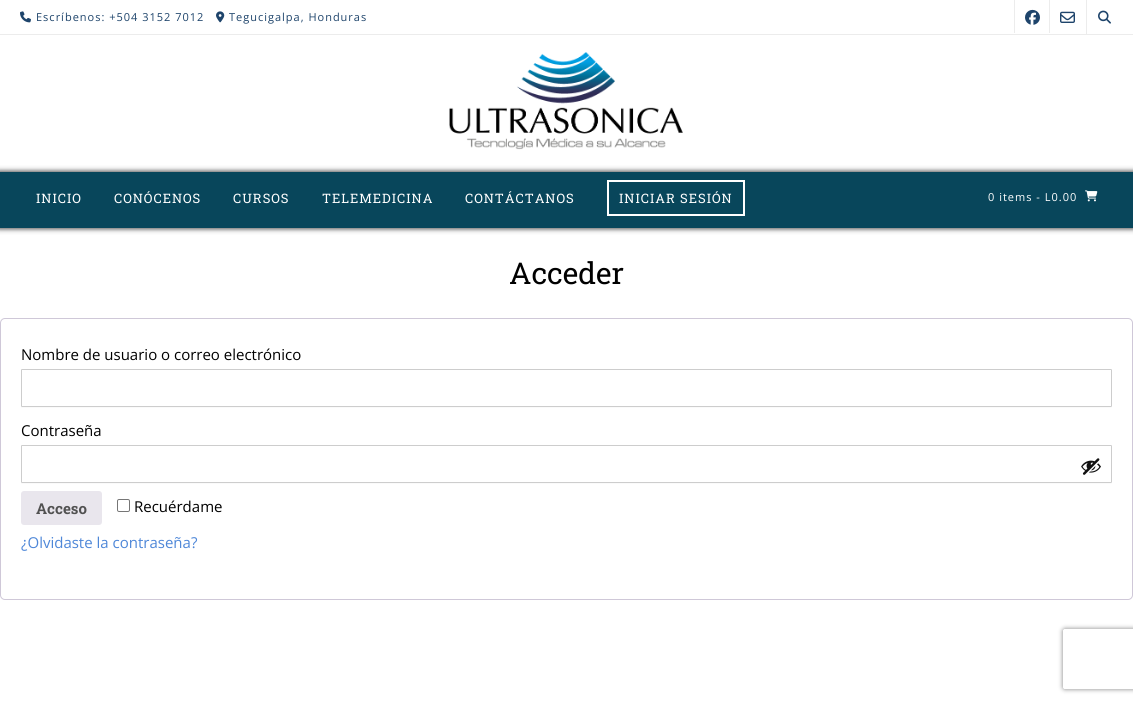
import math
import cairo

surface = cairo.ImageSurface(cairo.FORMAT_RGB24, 1133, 703)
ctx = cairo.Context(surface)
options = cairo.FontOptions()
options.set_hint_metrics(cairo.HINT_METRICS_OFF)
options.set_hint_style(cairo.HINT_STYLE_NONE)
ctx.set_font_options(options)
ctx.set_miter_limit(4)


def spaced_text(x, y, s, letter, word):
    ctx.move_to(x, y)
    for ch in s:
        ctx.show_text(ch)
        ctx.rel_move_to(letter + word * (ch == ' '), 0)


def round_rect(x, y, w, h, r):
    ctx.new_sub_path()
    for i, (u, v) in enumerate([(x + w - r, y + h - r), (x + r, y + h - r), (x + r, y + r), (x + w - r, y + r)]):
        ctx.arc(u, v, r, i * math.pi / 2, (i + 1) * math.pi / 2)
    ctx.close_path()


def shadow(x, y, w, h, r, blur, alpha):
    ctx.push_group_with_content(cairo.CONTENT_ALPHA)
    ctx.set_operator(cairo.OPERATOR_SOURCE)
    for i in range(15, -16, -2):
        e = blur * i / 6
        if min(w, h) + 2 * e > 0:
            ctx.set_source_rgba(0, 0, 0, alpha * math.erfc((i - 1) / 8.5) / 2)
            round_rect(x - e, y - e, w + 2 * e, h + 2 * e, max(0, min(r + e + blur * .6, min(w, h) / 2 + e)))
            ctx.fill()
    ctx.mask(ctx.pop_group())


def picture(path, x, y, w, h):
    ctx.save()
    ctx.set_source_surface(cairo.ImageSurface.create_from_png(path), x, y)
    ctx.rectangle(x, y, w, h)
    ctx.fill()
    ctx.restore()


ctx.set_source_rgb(1, 1, 1)
ctx.paint()
ctx.set_source_rgb(0.922, 0.922, 0.922)
ctx.rectangle(0, 34, 1133, 1)
ctx.fill()
picture("img1.png", 20, 11, 11, 12)
ctx.select_font_face("Open Sans")
ctx.set_font_size(11)
ctx.set_source_rgb(0.118, 0.267, 0.42)
spaced_text(36, 21, "Escríbenos: +504 3152 7012", 1, 0)
picture("img2.png", 216, 11, 9, 12)
spaced_text(229, 21, "Tegucigalpa, Honduras", 1, 0)
ctx.set_source_rgb(0.922, 0.922, 0.922)
ctx.rectangle(1014, 0, 1, 33)
ctx.fill()
picture("img3.png", 1025, 9, 15, 16)
ctx.rectangle(1049, 0, 1, 33)
ctx.fill()
picture("img4.png", 1060, 11, 15, 12)
ctx.rectangle(1086, 0, 1, 34)
ctx.fill()
picture("img5.png", 1098, 10, 13, 14)
picture("img6.png", 449, 52, 234, 98)
ctx.set_source_rgb(0, 0, 0)
shadow(-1, 171, 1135, 58, 0, 2.5, 0.7)
ctx.set_source_rgb(0.035, 0.275, 0.357)
ctx.rectangle(0, 172, 1133, 56)
ctx.fill()
ctx.select_font_face("Roboto Slab")
ctx.set_font_size(13)
ctx.set_source_rgb(1, 1, 1)
spaced_text(36, 203, "INICIO", 1, 0)
spaced_text(114, 203, "CONÓCENOS", 1, 0)
spaced_text(233, 203, "CURSOS", 1, 0)
spaced_text(322, 203, "TELEMEDICINA", 1, 0)
spaced_text(465, 203, "CONTÁCTANOS", 1, 0)
ctx.rectangle(608, 181, 136, 34)
ctx.stroke()
spaced_text(619, 203, "INICIAR SESIÓN", 1, 0)
ctx.select_font_face("Open Sans")
ctx.set_font_size(11)
spaced_text(988, 201, "0 items - L0.00", 1, 0)
picture("img7.png", 1085, 190, 13, 12)
ctx.select_font_face("Roboto Slab")
ctx.set_font_size(30)
ctx.set_source_rgb(0, 0, 0)
ctx.move_to(509, 284)
ctx.show_text("Acceder")
round_rect(0.5, 318.5, 1132, 281, 4.5)
ctx.set_source_rgb(0.812, 0.784, 0.847)
ctx.set_line_width(1)
ctx.stroke()
ctx.select_font_face("Open Sans")
ctx.set_font_size(15)
ctx.set_source_rgb(0, 0, 0)
ctx.move_to(21, 360)
ctx.show_text("Nombre de usuario o correo electrónico")
ctx.set_source_rgb(0.98, 0.98, 0.98)
ctx.new_path()
ctx.move_to(21, 406)
ctx.curve_to(21, 407, 21, 408, 22, 408)
ctx.line_to(1111, 408)
ctx.line_to(1112, 407)
ctx.line_to(1112, 406)
ctx.line_to(1111, 407)
ctx.line_to(22, 407)
ctx.close_path()
ctx.fill()
round_rect(21.5, 369.5, 1090, 37, 0.5)
ctx.set_source_rgb(0.804, 0.804, 0.804)
ctx.stroke()
ctx.set_source_rgb(0, 0, 0)
ctx.move_to(21, 436)
ctx.show_text("Contraseña")
ctx.set_source_rgb(0.98, 0.98, 0.98)
ctx.new_path()
ctx.move_to(21, 482)
ctx.curve_to(21, 483, 21, 484, 22, 484)
ctx.line_to(1111, 484)
ctx.line_to(1112, 483)
ctx.line_to(1112, 482)
ctx.line_to(1111, 483)
ctx.line_to(22, 483)
ctx.close_path()
ctx.fill()
round_rect(21.5, 445.5, 1090, 37, 0.5)
ctx.set_source_rgb(0.804, 0.804, 0.804)
ctx.stroke()
picture("img8.png", 1081, 458, 20, 17)
ctx.set_source_rgb(0.914, 0.902, 0.929)
round_rect(21, 491, 81, 34, 3)
ctx.fill()
ctx.select_font_face("Roboto Slab", cairo.FONT_SLANT_NORMAL, cairo.FONT_WEIGHT_BOLD)
ctx.set_source_rgb(0.318, 0.318, 0.318)
ctx.move_to(36, 514)
ctx.show_text("Acceso")
round_rect(117.5, 499.5, 12, 12, 1.5)
ctx.set_source_rgb(0.463, 0.463, 0.463)
ctx.stroke()
ctx.select_font_face("Open Sans")
ctx.set_source_rgb(0, 0, 0)
ctx.move_to(134, 512)
ctx.show_text("Recuérdame")
ctx.set_source_rgb(0.306, 0.529, 0.847)
ctx.move_to(21, 548)
ctx.show_text("¿Olvidaste la contraseña?")
ctx.save()
ctx.set_fill_rule(cairo.FILL_RULE_EVEN_ODD)
ctx.new_path()
ctx.move_to(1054, 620)
ctx.line_to(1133, 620)
ctx.line_to(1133, 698)
ctx.line_to(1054, 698)
ctx.close_path()
ctx.move_to(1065, 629)
ctx.line_to(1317, 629)
ctx.curve_to(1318, 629, 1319, 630, 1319, 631)
ctx.line_to(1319, 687)
ctx.curve_to(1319, 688, 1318, 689, 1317, 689)
ctx.line_to(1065, 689)
ctx.curve_to(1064, 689, 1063, 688, 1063, 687)
ctx.line_to(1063, 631)
ctx.curve_to(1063, 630, 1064, 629, 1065, 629)
ctx.close_path()
ctx.clip()
ctx.set_source_rgb(0.502, 0.502, 0.502)
shadow(1063, 629, 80, 60, 2, 2.5, 1)
ctx.restore()
surface.write_to_png("page.png")
